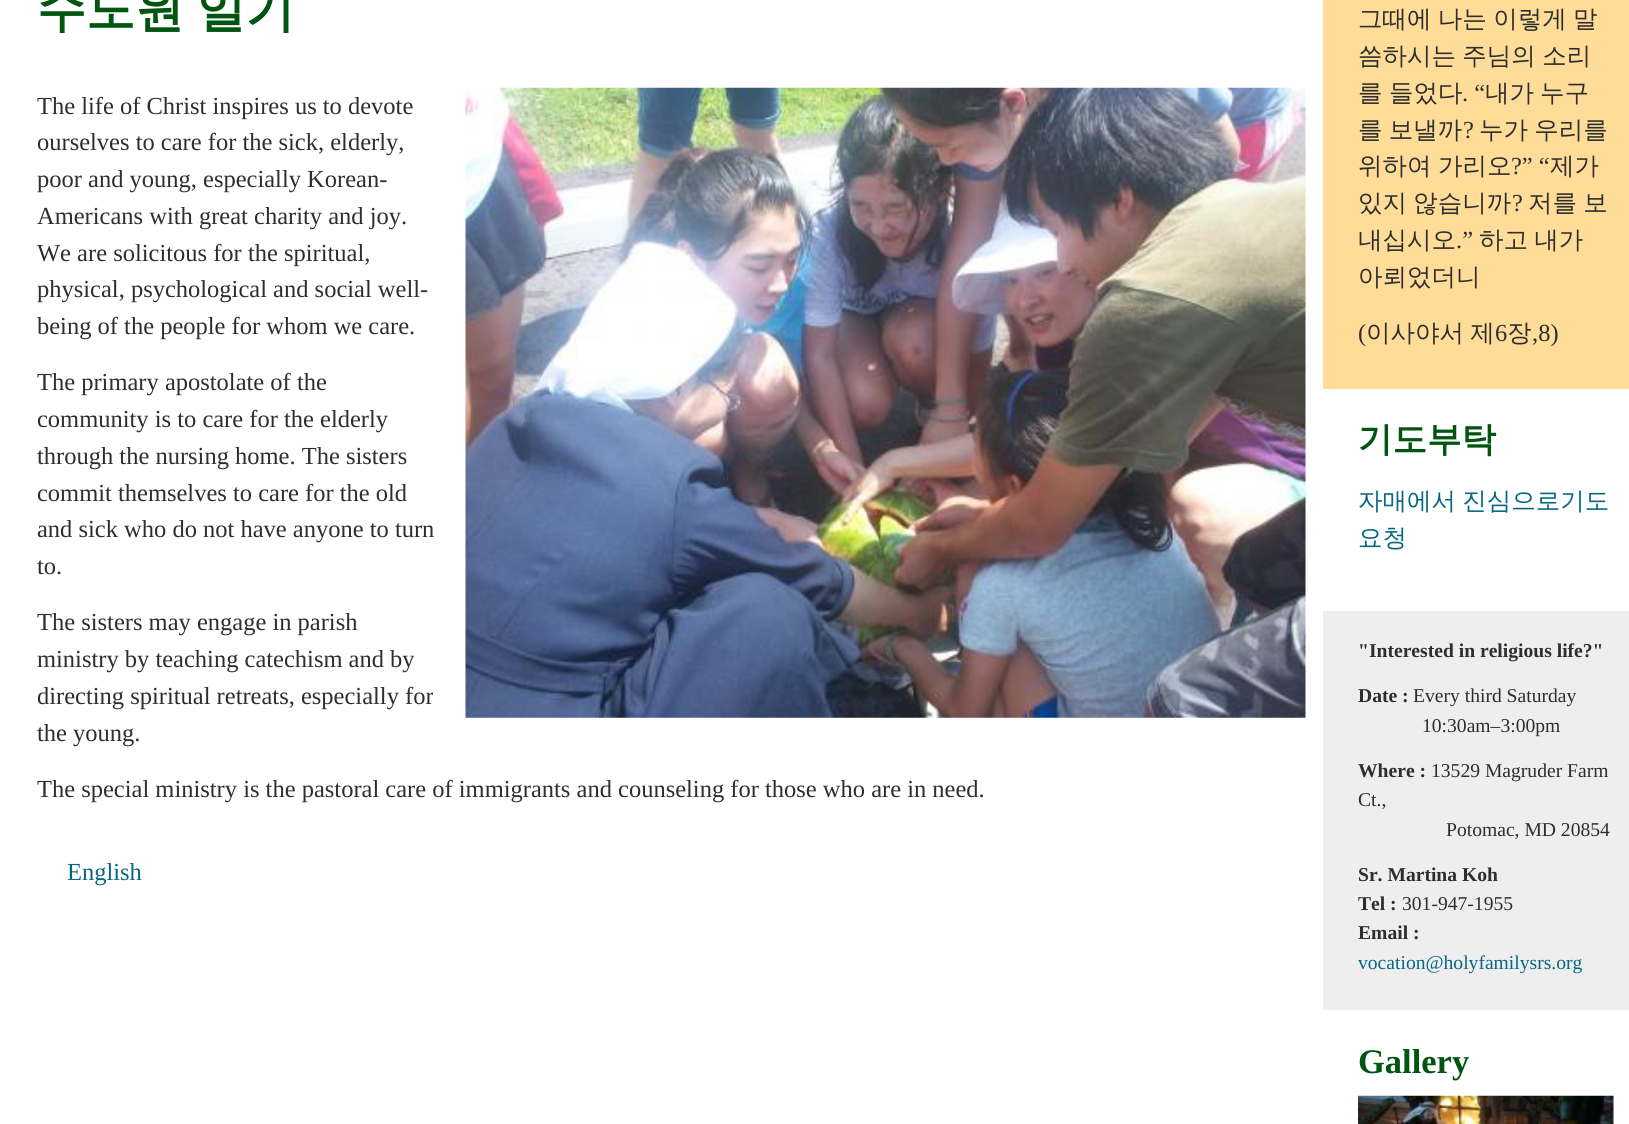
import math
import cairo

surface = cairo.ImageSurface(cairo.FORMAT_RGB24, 1629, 1124)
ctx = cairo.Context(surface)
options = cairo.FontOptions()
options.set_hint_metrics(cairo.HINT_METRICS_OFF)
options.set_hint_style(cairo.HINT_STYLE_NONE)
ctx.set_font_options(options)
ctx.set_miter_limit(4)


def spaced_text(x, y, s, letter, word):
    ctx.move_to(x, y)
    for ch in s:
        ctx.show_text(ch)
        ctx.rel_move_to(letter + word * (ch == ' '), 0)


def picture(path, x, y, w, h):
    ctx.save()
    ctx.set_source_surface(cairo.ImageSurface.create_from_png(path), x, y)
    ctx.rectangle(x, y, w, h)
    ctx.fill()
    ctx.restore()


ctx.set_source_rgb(1, 1, 1)
ctx.paint()
ctx.select_font_face("WenQuanYi Zen Hei", cairo.FONT_SLANT_NORMAL, cairo.FONT_WEIGHT_BOLD)
ctx.set_font_size(49)
ctx.set_source_rgb(0, 0.333, 0.067)
spaced_text(37, 26, "수도원 일기", 0, -2)
ctx.select_font_face("Liberation Serif")
ctx.set_font_size(24.5)
ctx.set_source_rgb(0.18, 0.18, 0.18)
ctx.move_to(37, 114)
ctx.show_text("The life of Christ inspires us to devote")
picture("img1.png", 465, 87, 841, 631)
ctx.move_to(37, 150)
ctx.show_text("ourselves to care for the sick, elderly,")
ctx.move_to(37, 187)
ctx.show_text("poor and young, especially Korean-")
ctx.move_to(37, 224)
ctx.show_text("Americans with great charity and joy.")
ctx.move_to(37, 261)
ctx.show_text("We are solicitous for the spiritual,")
ctx.move_to(37, 297)
ctx.show_text("physical, psychological and social well-")
ctx.move_to(37, 334)
ctx.show_text("being of the people for whom we care.")
ctx.move_to(37, 390)
ctx.show_text("The primary apostolate of the")
ctx.move_to(37, 427)
ctx.show_text("community is to care for the elderly")
ctx.move_to(37, 464)
ctx.show_text("through the nursing home. The sisters")
ctx.move_to(37, 501)
ctx.show_text("commit themselves to care for the old")
ctx.move_to(37, 537)
ctx.show_text("and sick who do not have anyone to turn")
ctx.move_to(37, 574)
ctx.show_text("to.")
ctx.move_to(37, 630)
ctx.show_text("The sisters may engage in parish")
ctx.move_to(37, 667)
ctx.show_text("ministry by teaching catechism and by")
ctx.move_to(37, 704)
ctx.show_text("directing spiritual retreats, especially for")
ctx.move_to(37, 741)
ctx.show_text("the young.")
ctx.move_to(37, 797)
ctx.show_text("The special ministry is the pastoral care of immigrants and counseling for those who are in need.")
ctx.set_source_rgb(0.031, 0.404, 0.51)
ctx.move_to(67, 880)
ctx.show_text("English")
ctx.set_source_rgb(1, 0.867, 0.6)
ctx.rectangle(1323, 0, 306, 389)
ctx.fill()
ctx.select_font_face("WenQuanYi Zen Hei Medium")
ctx.set_source_rgb(0.18, 0.18, 0.18)
spaced_text(1358, 27, "그때에 나는 이렇게 말", 0, -1)
spaced_text(1358, 64, "씀하시는 주님의 소리", 0, -1)
ctx.move_to(1358, 101)
ctx.show_text("를")
ctx.move_to(1389, 101)
ctx.show_text("들었다")
ctx.select_font_face("Liberation Serif")
ctx.move_to(1462, 101)
ctx.show_text(". “")
ctx.select_font_face("WenQuanYi Zen Hei Medium")
ctx.move_to(1485, 101)
ctx.show_text("내가")
ctx.move_to(1540, 101)
ctx.show_text("누구")
spaced_text(1358, 138, "를 보낼까", 0, -1)
ctx.select_font_face("Liberation Serif")
ctx.move_to(1463, 138)
ctx.show_text("?")
ctx.select_font_face("WenQuanYi Zen Hei Medium")
spaced_text(1479, 138, "누가 우리를", 0, -1)
ctx.move_to(1358, 174)
ctx.show_text("위하여")
ctx.move_to(1438, 174)
ctx.show_text("가리오")
ctx.select_font_face("Liberation Serif")
ctx.move_to(1511, 174)
ctx.show_text("?” “")
ctx.select_font_face("WenQuanYi Zen Hei Medium")
ctx.move_to(1550, 174)
ctx.show_text("제가")
spaced_text(1358, 211, "있지 않습니까", 0, -1)
ctx.select_font_face("Liberation Serif")
ctx.move_to(1512, 211)
ctx.show_text("?")
ctx.select_font_face("WenQuanYi Zen Hei Medium")
spaced_text(1528, 211, "저를 보", 0, -1)
ctx.move_to(1358, 248)
ctx.show_text("내십시오")
ctx.select_font_face("Liberation Serif")
ctx.move_to(1456, 248)
ctx.show_text(".”")
ctx.select_font_face("WenQuanYi Zen Hei Medium")
spaced_text(1479, 248, "하고 내가", 0, -1)
ctx.move_to(1358, 285)
ctx.show_text("아뢰었더니")
ctx.select_font_face("Liberation Serif")
ctx.move_to(1358, 341)
ctx.show_text("(")
ctx.select_font_face("WenQuanYi Zen Hei Medium")
spaced_text(1366, 341, "이사야서 제", 0, -1)
ctx.select_font_face("Liberation Serif")
ctx.move_to(1495, 341)
ctx.show_text("6")
ctx.select_font_face("WenQuanYi Zen Hei Medium")
ctx.move_to(1507, 341)
ctx.show_text("장")
ctx.select_font_face("Liberation Serif")
ctx.move_to(1532, 341)
ctx.show_text(",8)")
ctx.select_font_face("WenQuanYi Zen Hei", cairo.FONT_SLANT_NORMAL, cairo.FONT_WEIGHT_BOLD)
ctx.set_font_size(34.5)
ctx.set_source_rgb(0, 0.333, 0.067)
ctx.move_to(1358, 451)
ctx.show_text("기도부탁")
ctx.select_font_face("WenQuanYi Zen Hei Medium")
ctx.set_font_size(24.5)
ctx.set_source_rgb(0.031, 0.404, 0.51)
spaced_text(1358, 509, "자매에서 진심으로기도", 0, -1)
ctx.move_to(1358, 546)
ctx.show_text("요청")
ctx.set_source_rgb(0.933, 0.933, 0.933)
ctx.rectangle(1323, 611, 306, 399)
ctx.fill()
ctx.select_font_face("Liberation Serif", cairo.FONT_SLANT_NORMAL, cairo.FONT_WEIGHT_BOLD)
ctx.set_font_size(19.6)
ctx.set_source_rgb(0.18, 0.18, 0.18)
ctx.move_to(1358, 657)
ctx.show_text("\"Interested in religious life?\"")
ctx.move_to(1358, 702)
ctx.show_text("Date :")
ctx.select_font_face("Liberation Serif")
ctx.move_to(1413, 702)
ctx.show_text("Every third Saturday")
ctx.move_to(1422, 732)
ctx.show_text("10:30am–3:00pm")
ctx.select_font_face("Liberation Serif", cairo.FONT_SLANT_NORMAL, cairo.FONT_WEIGHT_BOLD)
ctx.move_to(1358, 777)
ctx.show_text("Where :")
ctx.select_font_face("Liberation Serif")
ctx.move_to(1431, 777)
ctx.show_text("13529 Magruder Farm")
ctx.move_to(1358, 806)
ctx.show_text("Ct.,")
ctx.move_to(1446, 836)
ctx.show_text("Potomac, MD 20854")
ctx.select_font_face("Liberation Serif", cairo.FONT_SLANT_NORMAL, cairo.FONT_WEIGHT_BOLD)
ctx.move_to(1358, 881)
ctx.show_text("Sr. Martina Koh")
ctx.move_to(1358, 910)
ctx.show_text("Tel :")
ctx.select_font_face("Liberation Serif")
ctx.move_to(1402, 910)
ctx.show_text("301-947-1955")
ctx.select_font_face("Liberation Serif", cairo.FONT_SLANT_NORMAL, cairo.FONT_WEIGHT_BOLD)
ctx.move_to(1358, 939)
ctx.show_text("Email :")
ctx.select_font_face("Liberation Serif")
ctx.set_source_rgb(0.031, 0.404, 0.51)
ctx.move_to(1358, 969)
ctx.show_text("vocation@holyfamilysrs.org")
ctx.select_font_face("Liberation Serif", cairo.FONT_SLANT_NORMAL, cairo.FONT_WEIGHT_BOLD)
ctx.set_font_size(34.5)
ctx.set_source_rgb(0, 0.333, 0.067)
ctx.move_to(1358, 1073)
ctx.show_text("Gallery")
picture("img2.png", 1358, 1095, 256, 29)
surface.write_to_png("page.png")
